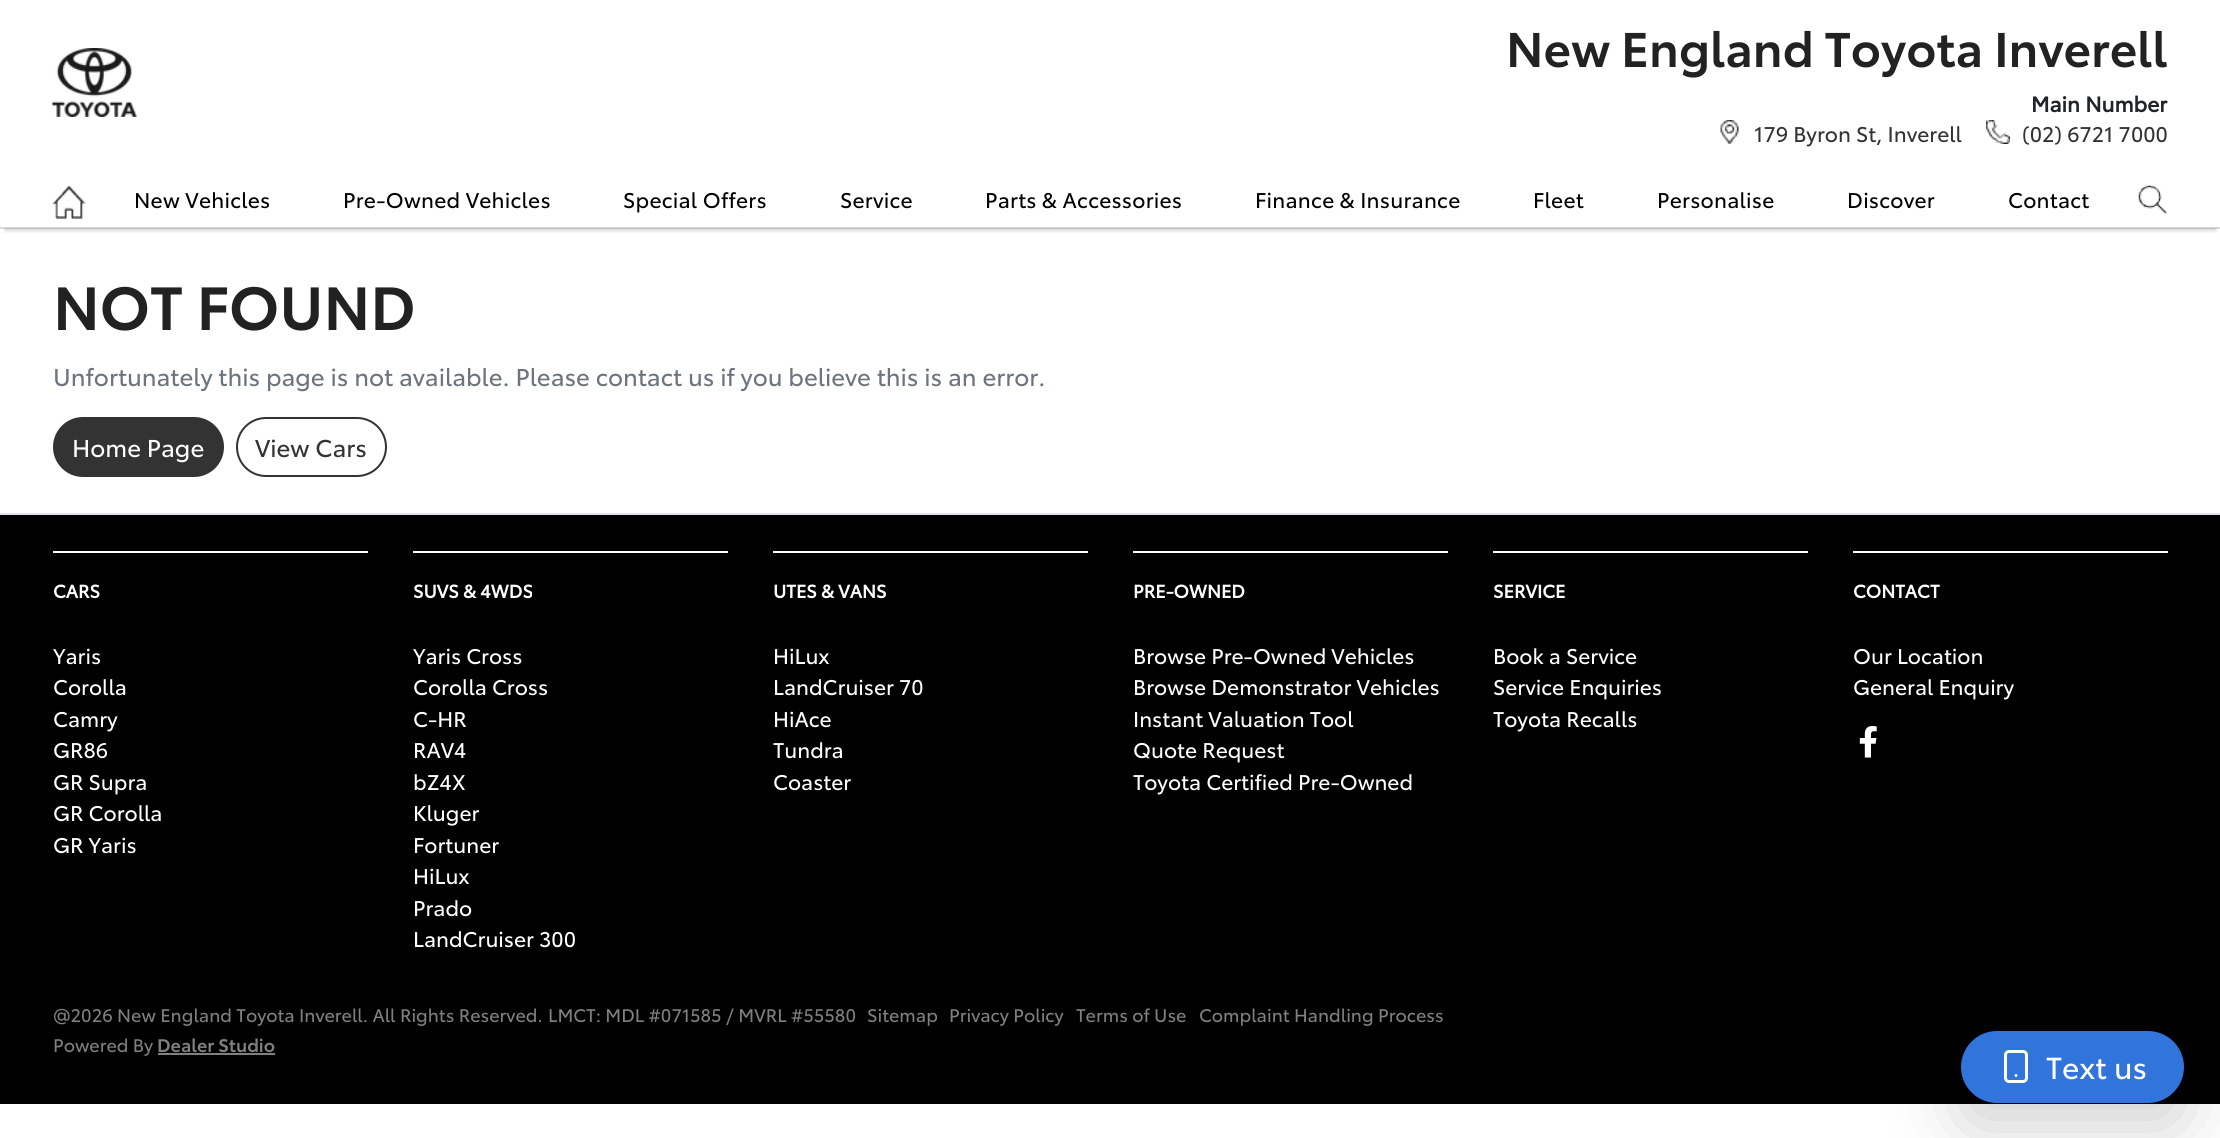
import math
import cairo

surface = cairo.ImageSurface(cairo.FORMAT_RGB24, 2220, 1138)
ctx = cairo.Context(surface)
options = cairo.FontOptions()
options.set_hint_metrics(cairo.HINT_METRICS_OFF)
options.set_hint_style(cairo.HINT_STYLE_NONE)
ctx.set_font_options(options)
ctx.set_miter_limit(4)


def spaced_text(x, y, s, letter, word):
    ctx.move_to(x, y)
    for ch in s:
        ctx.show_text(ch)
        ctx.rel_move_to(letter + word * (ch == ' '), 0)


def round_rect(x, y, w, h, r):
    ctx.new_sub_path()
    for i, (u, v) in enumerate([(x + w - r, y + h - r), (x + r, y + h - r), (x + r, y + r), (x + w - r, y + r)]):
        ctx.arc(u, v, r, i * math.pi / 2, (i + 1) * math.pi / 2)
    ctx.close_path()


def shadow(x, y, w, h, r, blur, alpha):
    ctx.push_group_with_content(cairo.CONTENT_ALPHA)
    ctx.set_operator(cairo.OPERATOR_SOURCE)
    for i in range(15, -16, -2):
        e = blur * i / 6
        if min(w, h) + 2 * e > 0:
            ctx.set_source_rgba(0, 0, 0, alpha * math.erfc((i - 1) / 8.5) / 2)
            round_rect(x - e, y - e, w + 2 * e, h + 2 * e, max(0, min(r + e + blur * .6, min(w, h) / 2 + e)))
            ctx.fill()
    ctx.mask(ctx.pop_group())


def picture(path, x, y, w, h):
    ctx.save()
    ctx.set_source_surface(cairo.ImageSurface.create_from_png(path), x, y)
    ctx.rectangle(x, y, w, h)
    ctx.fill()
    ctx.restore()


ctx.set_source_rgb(1, 1, 1)
ctx.paint()
picture("img1.png", 52, 48, 85, 69)
ctx.select_font_face("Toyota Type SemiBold")
ctx.set_font_size(48)
ctx.set_source_rgb(0.133, 0.133, 0.133)
ctx.move_to(1506, 67)
ctx.show_text("New England Toyota Inverell")
picture("img2.png", 1720, 120, 19, 24)
ctx.select_font_face("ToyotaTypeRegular")
ctx.set_font_size(21)
ctx.set_source_rgb(0.2, 0.2, 0.2)
ctx.move_to(1754, 142)
ctx.show_text("179 Byron St, Inverell")
ctx.select_font_face("ToyotaTypeRegular", cairo.FONT_SLANT_NORMAL, cairo.FONT_WEIGHT_BOLD)
ctx.set_source_rgb(0.129, 0.145, 0.161)
ctx.move_to(2031, 112)
ctx.show_text("Main Number")
picture("img3.png", 1986, 120, 24, 24)
ctx.select_font_face("ToyotaTypeRegular")
ctx.set_source_rgb(0.2, 0.2, 0.2)
ctx.move_to(2022, 142)
ctx.show_text("(02) 6721 7000")
ctx.save()
ctx.rectangle(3, 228, 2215, 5)
ctx.clip()
ctx.set_source_rgb(0, 0, 0)
shadow(5, 183, 2211, 48, 0, 2, 0.15)
ctx.restore()
ctx.set_source_rgba(0, 0, 0, 0.15)
ctx.rectangle(0, 227, 2220, 2)
ctx.fill()
picture("img4.png", 52, 186, 34, 33)
ctx.set_source_rgb(0, 0, 0)
spaced_text(134, 208, "New Vehicles", 0.25, 0)
spaced_text(343, 208, "Pre-Owned Vehicles", 0.25, 0)
spaced_text(623, 208, "Special Offers", 0.25, 0)
spaced_text(840, 208, "Service", 0.25, 0)
spaced_text(985, 208, "Parts & Accessories", 0.25, 0)
spaced_text(1255, 208, "Finance & Insurance", 0.25, 0)
spaced_text(1533, 208, "Fleet", 0.25, 0)
spaced_text(1657, 208, "Personalise", 0.25, 0)
spaced_text(1847, 208, "Discover", 0.25, 0)
spaced_text(2008, 208, "Contact", 0.25, 0)
picture("img5.png", 2138, 185, 29, 29)
ctx.select_font_face("Toyota Type SemiBold")
ctx.set_font_size(60)
ctx.set_source_rgb(0.133, 0.133, 0.133)
ctx.move_to(53, 330)
ctx.show_text("NOT FOUND")
ctx.select_font_face("ToyotaTypeRegular")
ctx.set_font_size(24)
ctx.set_source_rgb(0.424, 0.459, 0.49)
ctx.move_to(53, 386)
ctx.show_text("Unfortunately this page is not available. Please contact us if you believe this is an error.")
ctx.set_source_rgb(0.2, 0.2, 0.2)
round_rect(54, 418, 169, 58, 29)
ctx.fill_preserve()
ctx.stroke()
ctx.set_source_rgb(1, 1, 1)
ctx.move_to(72, 457)
ctx.show_text("Home Page")
round_rect(237, 418, 149, 58, 29)
ctx.set_source_rgb(0.2, 0.2, 0.2)
ctx.stroke()
ctx.move_to(255, 457)
ctx.show_text("View Cars")
ctx.set_source_rgb(0, 0, 0)
ctx.rectangle(0, 515, 2220, 589)
ctx.fill()
ctx.set_source_rgb(0.871, 0.886, 0.902)
ctx.rectangle(0, 513, 2220, 2)
ctx.fill()
ctx.set_source_rgb(1, 1, 1)
ctx.rectangle(53, 551, 315, 2)
ctx.fill()
ctx.select_font_face("ToyotaTypeRegular", cairo.FONT_SLANT_NORMAL, cairo.FONT_WEIGHT_BOLD)
ctx.set_font_size(18)
ctx.move_to(53, 598)
ctx.show_text("CARS")
ctx.select_font_face("ToyotaTypeRegular")
ctx.set_font_size(21)
ctx.move_to(53, 664)
ctx.show_text("Yaris")
ctx.move_to(53, 695)
ctx.show_text("Corolla")
ctx.move_to(53, 727)
ctx.show_text("Camry")
ctx.move_to(53, 758)
ctx.show_text("GR86")
ctx.move_to(53, 790)
ctx.show_text("GR Supra")
ctx.move_to(53, 821)
ctx.show_text("GR Corolla")
ctx.move_to(53, 853)
ctx.show_text("GR Yaris")
ctx.rectangle(413, 551, 315, 2)
ctx.fill()
ctx.select_font_face("ToyotaTypeRegular", cairo.FONT_SLANT_NORMAL, cairo.FONT_WEIGHT_BOLD)
ctx.set_font_size(18)
ctx.move_to(413, 598)
ctx.show_text("SUVS & 4WDS")
ctx.select_font_face("ToyotaTypeRegular")
ctx.set_font_size(21)
ctx.move_to(413, 664)
ctx.show_text("Yaris Cross")
ctx.move_to(413, 695)
ctx.show_text("Corolla Cross")
ctx.move_to(413, 727)
ctx.show_text("C-HR")
ctx.move_to(413, 758)
ctx.show_text("RAV4")
ctx.move_to(413, 790)
ctx.show_text("bZ4X")
ctx.move_to(413, 821)
ctx.show_text("Kluger")
ctx.move_to(413, 853)
ctx.show_text("Fortuner")
ctx.move_to(413, 884)
ctx.show_text("HiLux")
ctx.move_to(413, 916)
ctx.show_text("Prado")
ctx.move_to(413, 947)
ctx.show_text("LandCruiser 300")
ctx.rectangle(773, 551, 315, 2)
ctx.fill()
ctx.select_font_face("ToyotaTypeRegular", cairo.FONT_SLANT_NORMAL, cairo.FONT_WEIGHT_BOLD)
ctx.set_font_size(18)
ctx.move_to(773, 598)
ctx.show_text("UTES & VANS")
ctx.select_font_face("ToyotaTypeRegular")
ctx.set_font_size(21)
ctx.move_to(773, 664)
ctx.show_text("HiLux")
ctx.move_to(773, 695)
ctx.show_text("LandCruiser 70")
ctx.move_to(773, 727)
ctx.show_text("HiAce")
ctx.move_to(773, 758)
ctx.show_text("Tundra")
ctx.move_to(773, 790)
ctx.show_text("Coaster")
ctx.rectangle(1133, 551, 315, 2)
ctx.fill()
ctx.select_font_face("ToyotaTypeRegular", cairo.FONT_SLANT_NORMAL, cairo.FONT_WEIGHT_BOLD)
ctx.set_font_size(18)
ctx.move_to(1133, 598)
ctx.show_text("PRE-OWNED")
ctx.select_font_face("ToyotaTypeRegular")
ctx.set_font_size(21)
ctx.move_to(1133, 664)
ctx.show_text("Browse Pre-Owned Vehicles")
ctx.move_to(1133, 695)
ctx.show_text("Browse Demonstrator Vehicles")
ctx.move_to(1133, 727)
ctx.show_text("Instant Valuation Tool")
ctx.move_to(1133, 758)
ctx.show_text("Quote Request")
ctx.move_to(1133, 790)
ctx.show_text("Toyota Certified Pre-Owned")
ctx.rectangle(1493, 551, 315, 2)
ctx.fill()
ctx.select_font_face("ToyotaTypeRegular", cairo.FONT_SLANT_NORMAL, cairo.FONT_WEIGHT_BOLD)
ctx.set_font_size(18)
ctx.move_to(1493, 598)
ctx.show_text("SERVICE")
ctx.select_font_face("ToyotaTypeRegular")
ctx.set_font_size(21)
ctx.move_to(1493, 664)
ctx.show_text("Book a Service")
ctx.move_to(1493, 695)
ctx.show_text("Service Enquiries")
ctx.move_to(1493, 727)
ctx.show_text("Toyota Recalls")
ctx.rectangle(1853, 551, 315, 2)
ctx.fill()
ctx.select_font_face("ToyotaTypeRegular", cairo.FONT_SLANT_NORMAL, cairo.FONT_WEIGHT_BOLD)
ctx.set_font_size(18)
ctx.move_to(1853, 598)
ctx.show_text("CONTACT")
ctx.select_font_face("ToyotaTypeRegular")
ctx.set_font_size(21)
ctx.move_to(1853, 664)
ctx.show_text("Our Location")
ctx.move_to(1853, 695)
ctx.show_text("General Enquiry")
picture("img6.png", 1859, 726, 18, 32)
ctx.set_font_size(18)
ctx.set_source_rgb(0.502, 0.502, 0.502)
ctx.move_to(53, 1022)
ctx.show_text("@2026 New England Toyota Inverell. All Rights Reserved.")
ctx.move_to(548, 1022)
ctx.show_text("LMCT: MDL #071585 / MVRL #55580")
ctx.move_to(867, 1022)
ctx.show_text("Sitemap")
ctx.move_to(949, 1022)
ctx.show_text("Privacy Policy")
ctx.move_to(1076, 1022)
ctx.show_text("Terms of Use")
ctx.move_to(1199, 1022)
ctx.show_text("Complaint Handling Process")
ctx.move_to(53, 1052)
ctx.show_text("Powered By")
ctx.select_font_face("Toyota Type SemiBold")
ctx.move_to(157, 1052)
ctx.show_text("Dealer Studio")
ctx.rectangle(158, 1053, 117, 2)
ctx.fill()
ctx.set_source_rgb(0, 0, 0)
shadow(1961, 1055, 223, 72, 36, 36, 0.18)
ctx.set_source_rgb(0.188, 0.455, 0.863)
round_rect(1961, 1031, 223, 72, 36)
ctx.fill()
round_rect(2005.5, 1051.5, 21, 30, 3.5)
ctx.set_source_rgb(1, 1, 1)
ctx.set_line_width(3)
ctx.stroke()
ctx.new_path()
ctx.move_to(2016, 1075.5)
ctx.line_to(2016, 1075.5)
ctx.set_line_cap(cairo.LINE_CAP_ROUND)
ctx.set_line_join(cairo.LINE_JOIN_ROUND)
ctx.stroke()
ctx.select_font_face("ToyotaTypeRegular")
ctx.set_font_size(30)
ctx.move_to(2046, 1079)
ctx.show_text("Text us")
surface.write_to_png("page.png")
